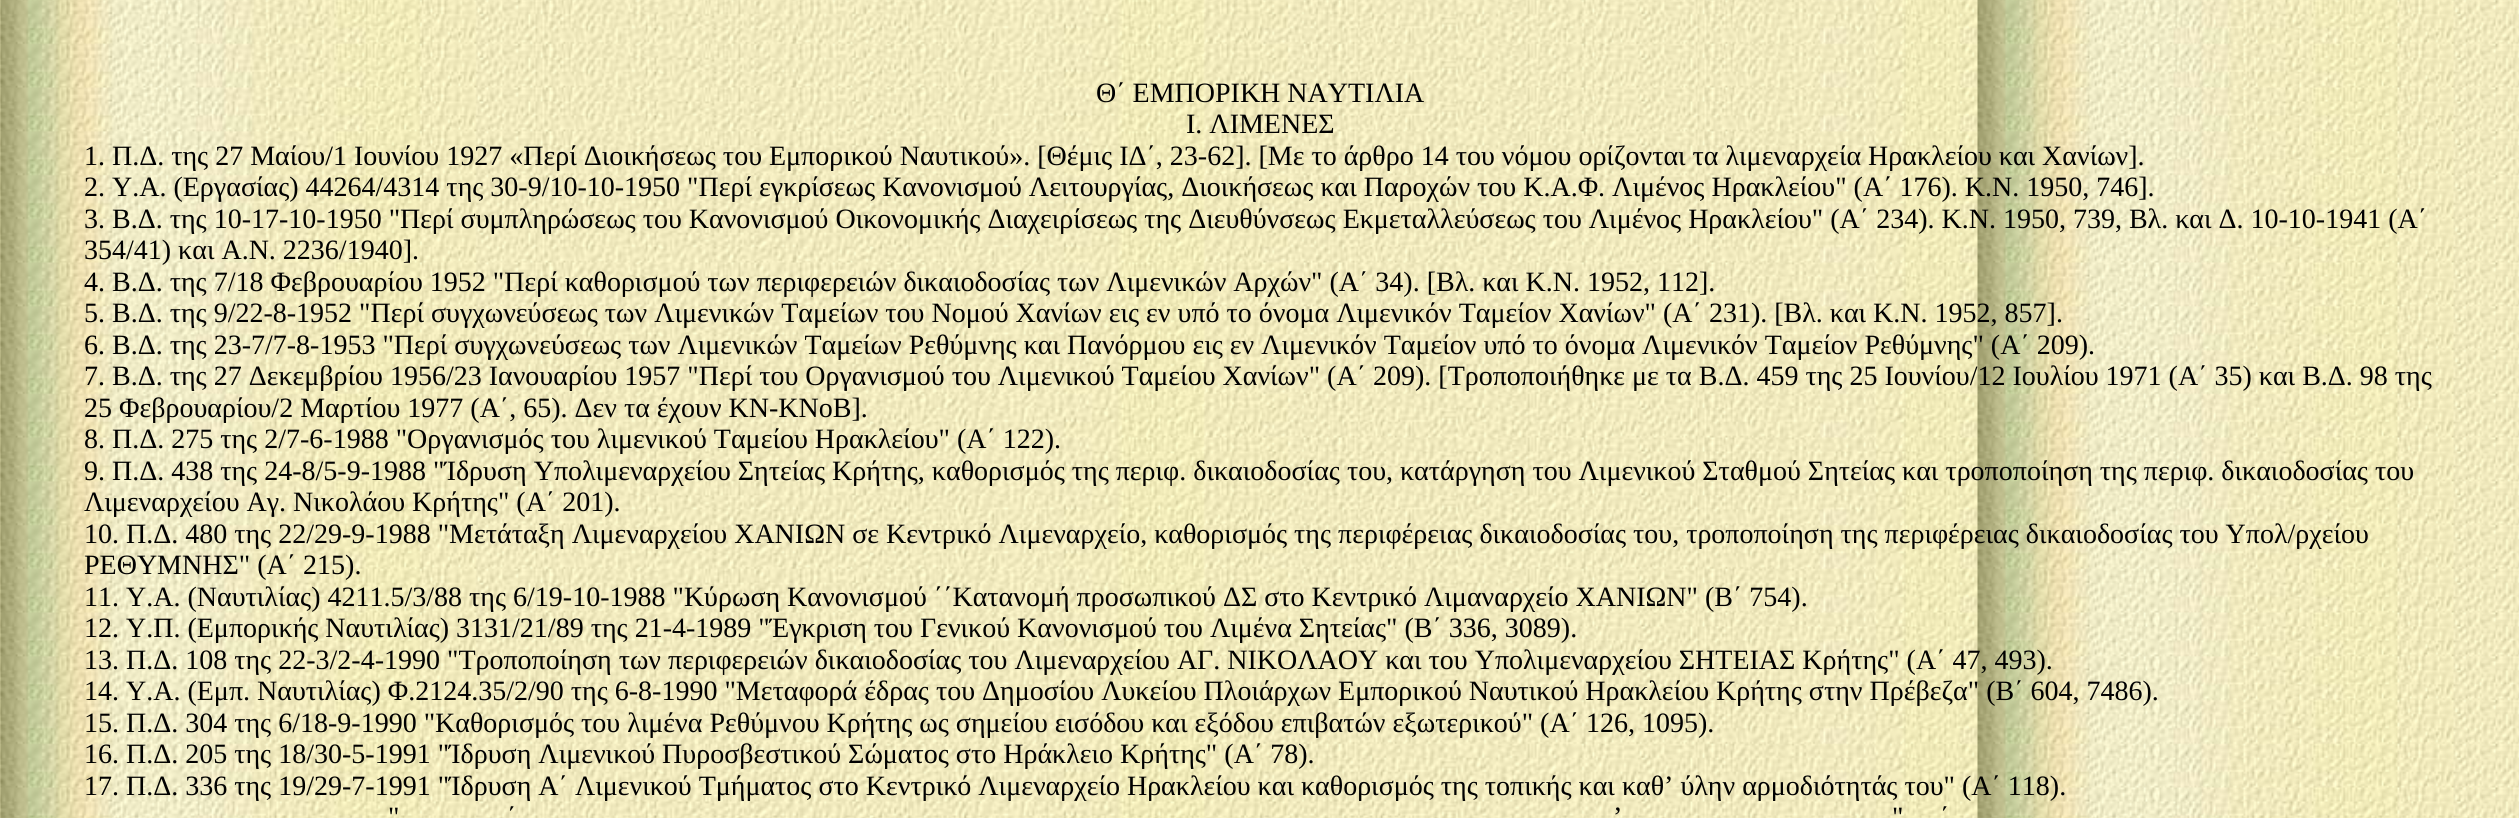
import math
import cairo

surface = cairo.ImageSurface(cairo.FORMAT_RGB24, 2519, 818)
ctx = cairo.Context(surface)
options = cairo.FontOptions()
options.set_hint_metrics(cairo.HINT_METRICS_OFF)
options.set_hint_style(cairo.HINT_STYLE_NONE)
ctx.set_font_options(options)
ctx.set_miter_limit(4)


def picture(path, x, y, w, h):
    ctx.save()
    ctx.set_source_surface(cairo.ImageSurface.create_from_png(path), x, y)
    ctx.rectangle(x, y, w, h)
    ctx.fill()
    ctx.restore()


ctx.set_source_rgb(1, 1, 1)
ctx.paint()
picture("img1.png", 0, 0, 2519, 818)
ctx.select_font_face("Liberation Serif")
ctx.set_font_size(28)
ctx.set_source_rgb(0, 0, 0)
ctx.move_to(1096, 102)
ctx.show_text("Θ΄ ΕΜΠΟΡΙΚΗ ΝΑΥΤΙΛΙΑ")
ctx.move_to(1186, 133)
ctx.show_text("Ι. ΛΙΜΕΝΕΣ")
ctx.move_to(84, 165)
ctx.show_text("1. Π.Δ. της 27 Μαίου/1 Ιουνίου 1927 «Περί Διοικήσεως του Εμπορικού Ναυτικού». [Θέμις ΙΔ΄, 23-62]. [Με το άρθρο 14 του νόμου ορίζονται τα λιμεναρχεία Ηρακλείου και Χανίων].")
ctx.move_to(84, 196)
ctx.show_text("2. Υ.Α. (Εργασίας) 44264/4314 της 30-9/10-10-1950 \"Περί εγκρίσεως Κανονισμού Λειτουργίας, Διοικήσεως και Παροχών του Κ.Α.Φ. Λιμένος Ηρακλείου\" (Α΄ 176). Κ.Ν. 1950, 746].")
ctx.move_to(84, 228)
ctx.show_text("3. Β.Δ. της 10-17-10-1950 \"Περί συμπληρώσεως του Κανονισμού Οικονομικής Διαχειρίσεως της Διευθύνσεως Εκμεταλλεύσεως του Λιμένος Ηρακλείου\" (Α΄ 234). Κ.Ν. 1950, 739, Βλ. και Δ. 10-10-1941 (Α΄")
ctx.move_to(84, 259)
ctx.show_text("354/41) και Α.Ν. 2236/1940].")
ctx.move_to(84, 291)
ctx.show_text("4. B.Δ. της 7/18 Φεβρουαρίου 1952 \"Περί καθορισμού των περιφερειών δικαιοδοσίας των Λιμενικών Αρχών\" (Α΄ 34). [Βλ. και Κ.Ν. 1952, 112].")
ctx.move_to(84, 322)
ctx.show_text("5. B.Δ. της 9/22-8-1952 \"Περί συγχωνεύσεως των Λιμενικών Ταμείων του Νομού Χανίων εις εν υπό το όνομα Λιμενικόν Ταμείον Χανίων\" (Α΄ 231). [Βλ. και Κ.Ν. 1952, 857].")
ctx.move_to(84, 354)
ctx.show_text("6. B.Δ. της 23-7/7-8-1953 \"Περί συγχωνεύσεως των Λιμενικών Ταμείων Ρεθύμνης και Πανόρμου εις εν Λιμενικόν Ταμείον υπό το όνομα Λιμενικόν Ταμείον Ρεθύμνης\" (Α΄ 209).")
ctx.move_to(84, 385)
ctx.show_text("7. B.Δ. της 27 Δεκεμβρίου 1956/23 Ιανουαρίου 1957 \"Περί του Οργανισμού του Λιμενικού Ταμείου Χανίων\" (Α΄ 209). [Τροποποιήθηκε με τα Β.Δ. 459 της 25 Ιουνίου/12 Ιουλίου 1971 (Α΄ 35) και Β.Δ. 98 της")
ctx.move_to(84, 417)
ctx.show_text("25 Φεβρουαρίου/2 Μαρτίου 1977 (Α΄, 65). Δεν τα έχουν ΚΝ-ΚΝοΒ].")
ctx.move_to(84, 448)
ctx.show_text("8. Π.Δ. 275 της 2/7-6-1988 \"Οργανισμός του λιμενικού Ταμείου Ηρακλείου\" (Α΄ 122).")
ctx.move_to(84, 480)
ctx.show_text("9. Π.Δ. 438 της 24-8/5-9-1988 \"Ίδρυση Υπολιμεναρχείου Σητείας Κρήτης, καθορισμός της περιφ. δικαιοδοσίας του, κατάργηση του Λιμενικού Σταθμού Σητείας και τροποποίηση της περιφ. δικαιοδοσίας του")
ctx.move_to(84, 511)
ctx.show_text("Λιμεναρχείου Αγ. Νικολάου Κρήτης\" (Α΄ 201).")
ctx.move_to(84, 543)
ctx.show_text("10. Π.Δ. 480 της 22/29-9-1988 \"Μετάταξη Λιμεναρχείου ΧΑΝΙΩΝ σε Κεντρικό Λιμεναρχείο, καθορισμός της περιφέρειας δικαιοδοσίας του, τροποποίηση της περιφέρειας δικαιοδοσίας του Υπολ/ρχείου")
ctx.move_to(84, 574)
ctx.show_text("ΡΕΘΥΜΝΗΣ\" (Α΄ 215).")
ctx.move_to(84, 606)
ctx.show_text("11. Υ.Α. (Ναυτιλίας) 4211.5/3/88 της 6/19-10-1988 \"Κύρωση Κανονισμού ΄΄Κατανομή προσωπικού ΔΣ στο Κεντρικό Λιμαναρχείο ΧΑΝΙΩΝ\" (Β΄ 754).")
ctx.move_to(84, 637)
ctx.show_text("12. Υ.Π. (Εμπορικής Ναυτιλίας) 3131/21/89 της 21-4-1989 \"Έγκριση του Γενικού Κανονισμού του Λιμένα Σητείας\" (Β΄ 336, 3089).")
ctx.move_to(84, 669)
ctx.show_text("13. Π.Δ. 108 της 22-3/2-4-1990 \"Τροποποίηση των περιφερειών δικαιοδοσίας του Λιμεναρχείου ΑΓ. ΝΙΚΟΛΑΟΥ και του Υπολιμεναρχείου ΣΗΤΕΙΑΣ Κρήτης\" (Α΄ 47, 493).")
ctx.move_to(84, 700)
ctx.show_text("14. Υ.Α. (Εμπ. Ναυτιλίας) Φ.2124.35/2/90 της 6-8-1990 \"Μεταφορά έδρας του Δημοσίου Λυκείου Πλοιάρχων Εμπορικού Ναυτικού Ηρακλείου Κρήτης στην Πρέβεζα\" (Β΄ 604, 7486).")
ctx.move_to(84, 732)
ctx.show_text("15. Π.Δ. 304 της 6/18-9-1990 \"Καθορισμός του λιμένα Ρεθύμνου Κρήτης ως σημείου εισόδου και εξόδου επιβατών εξωτερικού\" (Α΄ 126, 1095).")
ctx.move_to(84, 763)
ctx.show_text("16. Π.Δ. 205 της 18/30-5-1991 \"Ίδρυση Λιμενικού Πυροσβεστικού Σώματος στο Ηράκλειο Κρήτης\" (Α΄ 78).")
ctx.move_to(84, 795)
ctx.show_text("17. Π.Δ. 336 της 19/29-7-1991 \"Ίδρυση Α΄ Λιμενικού Τμήματος στο Κεντρικό Λιμεναρχείο Ηρακλείου και καθορισμός της τοπικής και καθ’ ύλην αρμοδιότητάς του\" (Α΄ 118).")
ctx.move_to(388, 826)
ctx.show_text("\"")
ctx.move_to(507, 826)
ctx.show_text("΄")
ctx.move_to(1613, 826)
ctx.show_text("’")
ctx.move_to(1892, 826)
ctx.show_text("\"")
ctx.move_to(1940, 826)
ctx.show_text("΄")
surface.write_to_png("page.png")
